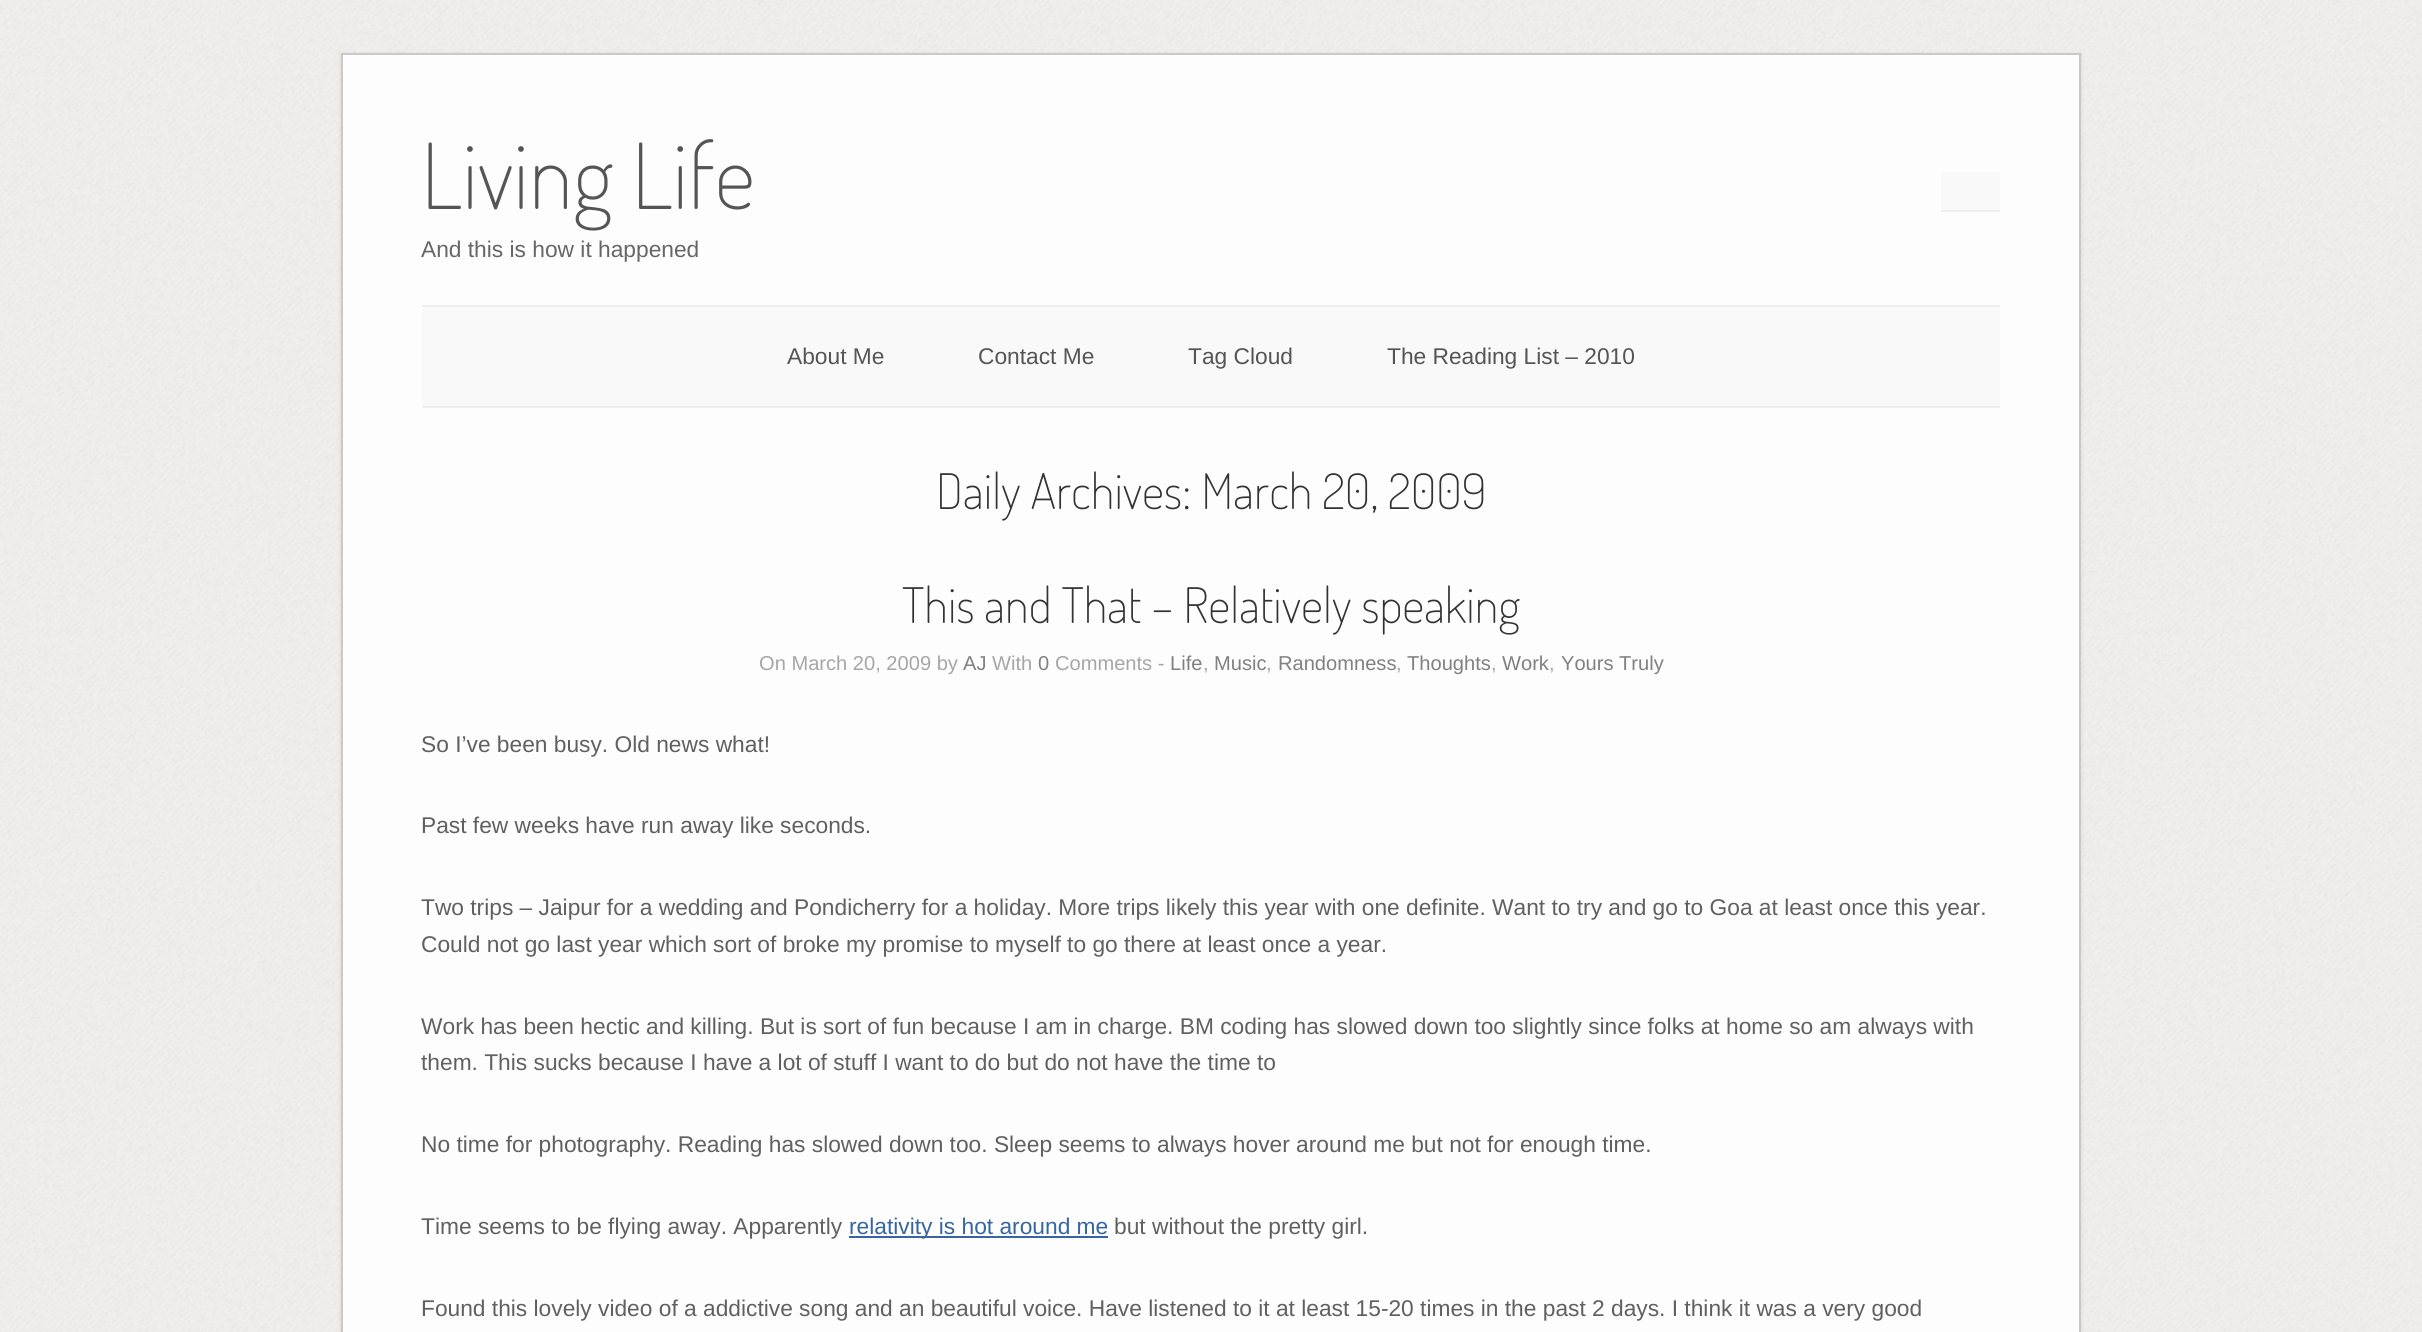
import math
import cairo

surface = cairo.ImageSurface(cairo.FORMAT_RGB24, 2422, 1332)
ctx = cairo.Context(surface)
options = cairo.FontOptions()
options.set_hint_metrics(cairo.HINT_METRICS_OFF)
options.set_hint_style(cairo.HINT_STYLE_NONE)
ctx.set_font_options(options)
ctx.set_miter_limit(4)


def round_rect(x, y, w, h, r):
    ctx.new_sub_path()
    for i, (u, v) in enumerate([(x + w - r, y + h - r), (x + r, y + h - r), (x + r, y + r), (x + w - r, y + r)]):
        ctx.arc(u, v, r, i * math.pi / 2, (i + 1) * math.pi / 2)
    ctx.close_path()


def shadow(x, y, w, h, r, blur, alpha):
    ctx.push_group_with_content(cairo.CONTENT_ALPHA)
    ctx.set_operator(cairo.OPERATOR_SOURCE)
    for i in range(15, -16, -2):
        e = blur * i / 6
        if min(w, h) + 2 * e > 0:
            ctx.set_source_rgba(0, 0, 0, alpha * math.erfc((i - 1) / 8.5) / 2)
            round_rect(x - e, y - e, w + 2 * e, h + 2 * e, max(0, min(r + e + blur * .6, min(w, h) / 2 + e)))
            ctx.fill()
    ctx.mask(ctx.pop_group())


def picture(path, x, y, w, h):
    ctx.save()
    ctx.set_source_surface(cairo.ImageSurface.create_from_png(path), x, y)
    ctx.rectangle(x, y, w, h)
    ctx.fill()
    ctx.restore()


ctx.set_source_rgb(1, 1, 1)
ctx.paint()
picture("img1.png", 0, 0, 2422, 1332)
ctx.set_source_rgb(0, 0, 0)
shadow(341, 54, 1740, 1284, 0, 2, 0.1)
ctx.set_source_rgb(0.992, 0.992, 0.992)
ctx.rectangle(342, 54, 1738, 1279)
ctx.fill_preserve()
ctx.set_source_rgb(0.796, 0.788, 0.78)
ctx.stroke()
ctx.select_font_face("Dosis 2 ExtraLight")
ctx.set_font_size(91)
ctx.set_source_rgb(0.333, 0.333, 0.333)
ctx.move_to(421, 209)
ctx.show_text("Living Life")
ctx.select_font_face("Liberation Sans")
ctx.set_font_size(22.75)
ctx.set_source_rgb(0.4, 0.4, 0.4)
ctx.move_to(421, 257)
ctx.show_text("And this is how it happened")
ctx.set_source_rgb(0.976, 0.976, 0.976)
ctx.rectangle(1941, 173, 59, 37)
ctx.fill()
ctx.set_source_rgb(0.933, 0.933, 0.933)
ctx.rectangle(1941, 210, 59, 2)
ctx.fill()
ctx.set_source_rgb(0.976, 0.976, 0.976)
ctx.rectangle(422, 307, 1578, 99)
ctx.fill()
ctx.set_source_rgb(0.933, 0.933, 0.933)
ctx.rectangle(422, 305, 1578, 2)
ctx.fill()
ctx.rectangle(422, 406, 1578, 2)
ctx.fill()
ctx.set_source_rgb(0.333, 0.333, 0.333)
ctx.move_to(787, 364)
ctx.show_text("About Me")
ctx.move_to(978, 364)
ctx.show_text("Contact Me")
ctx.move_to(1188, 364)
ctx.show_text("Tag Cloud")
ctx.move_to(1387, 364)
ctx.show_text("The Reading List – 2010")
ctx.select_font_face("Dosis ExtraLight")
ctx.set_font_size(49)
ctx.set_source_rgb(0.2, 0.2, 0.2)
ctx.move_to(936, 509)
ctx.show_text("Daily Archives: March 20, 2009")
ctx.move_to(902, 623)
ctx.show_text("This and That – Relatively speaking")
ctx.select_font_face("Liberation Sans")
ctx.set_font_size(20.1)
ctx.set_source_rgb(0.651, 0.651, 0.651)
ctx.move_to(759, 670)
ctx.show_text("On March 20, 2009 by")
ctx.set_source_rgb(0.502, 0.502, 0.502)
ctx.move_to(963, 670)
ctx.show_text("AJ")
ctx.set_source_rgb(0.651, 0.651, 0.651)
ctx.move_to(992, 670)
ctx.show_text("With")
ctx.set_source_rgb(0.502, 0.502, 0.502)
ctx.move_to(1038, 670)
ctx.show_text("0")
ctx.set_source_rgb(0.651, 0.651, 0.651)
ctx.move_to(1055, 670)
ctx.show_text("Comments -")
ctx.set_source_rgb(0.502, 0.502, 0.502)
ctx.move_to(1170, 670)
ctx.show_text("Life")
ctx.set_source_rgb(0.651, 0.651, 0.651)
ctx.move_to(1203, 670)
ctx.show_text(",")
ctx.set_source_rgb(0.502, 0.502, 0.502)
ctx.move_to(1214, 670)
ctx.show_text("Music")
ctx.set_source_rgb(0.651, 0.651, 0.651)
ctx.move_to(1266, 670)
ctx.show_text(",")
ctx.set_source_rgb(0.502, 0.502, 0.502)
ctx.move_to(1278, 670)
ctx.show_text("Randomness")
ctx.set_source_rgb(0.651, 0.651, 0.651)
ctx.move_to(1396, 670)
ctx.show_text(",")
ctx.set_source_rgb(0.502, 0.502, 0.502)
ctx.move_to(1407, 670)
ctx.show_text("Thoughts")
ctx.set_source_rgb(0.651, 0.651, 0.651)
ctx.move_to(1491, 670)
ctx.show_text(",")
ctx.set_source_rgb(0.502, 0.502, 0.502)
ctx.move_to(1502, 670)
ctx.show_text("Work")
ctx.set_source_rgb(0.651, 0.651, 0.651)
ctx.move_to(1549, 670)
ctx.show_text(",")
ctx.set_source_rgb(0.502, 0.502, 0.502)
ctx.move_to(1561, 670)
ctx.show_text("Yours Truly")
ctx.set_font_size(22.75)
ctx.set_source_rgb(0.376, 0.376, 0.376)
ctx.move_to(421, 752)
ctx.show_text("So I’ve been busy. Old news what!")
ctx.move_to(421, 833)
ctx.show_text("Past few weeks have run away like seconds.")
ctx.move_to(421, 915)
ctx.show_text("Two trips – Jaipur for a wedding and Pondicherry for a holiday. More trips likely this year with one definite. Want to try and go to Goa at least once this year.")
ctx.move_to(421, 952)
ctx.show_text("Could not go last year which sort of broke my promise to myself to go there at least once a year.")
ctx.move_to(421, 1034)
ctx.show_text("Work has been hectic and killing. But is sort of fun because I am in charge. BM coding has slowed down too slightly since folks at home so am always with")
ctx.move_to(421, 1070)
ctx.show_text("them. This sucks because I have a lot of stuff I want to do but do not have the time to")
ctx.move_to(421, 1152)
ctx.show_text("No time for photography. Reading has slowed down too. Sleep seems to always hover around me but not for enough time.")
ctx.move_to(421, 1234)
ctx.show_text("Time seems to be flying away. Apparently")
ctx.set_source_rgb(0.212, 0.396, 0.624)
ctx.rectangle(849, 1236, 259, 2)
ctx.fill()
ctx.move_to(849, 1234)
ctx.show_text("relativity is hot around me")
ctx.set_source_rgb(0.376, 0.376, 0.376)
ctx.move_to(1114, 1234)
ctx.show_text("but without the pretty girl.")
ctx.move_to(421, 1316)
ctx.show_text("Found this lovely video of a addictive song and an beautiful voice. Have listened to it at least 15-20 times in the past 2 days. I think it was a very good")
surface.write_to_png("page.png")
